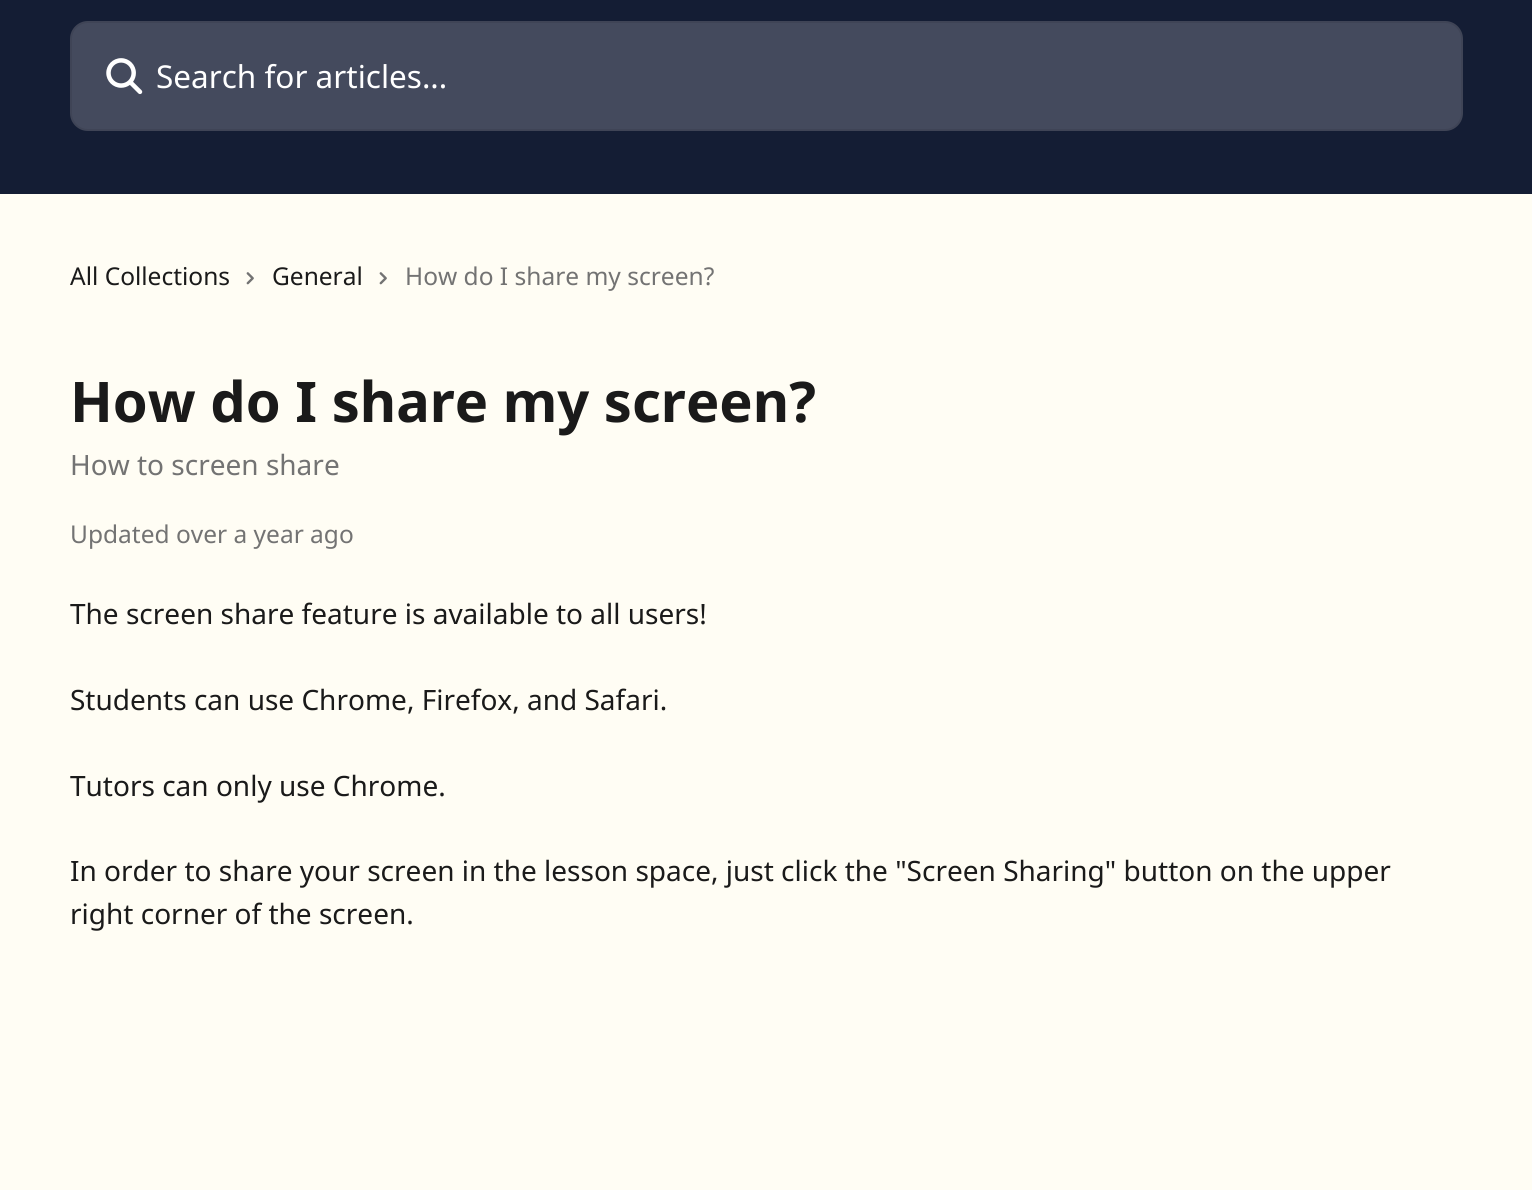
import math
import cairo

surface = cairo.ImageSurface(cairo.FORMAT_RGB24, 1532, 1190)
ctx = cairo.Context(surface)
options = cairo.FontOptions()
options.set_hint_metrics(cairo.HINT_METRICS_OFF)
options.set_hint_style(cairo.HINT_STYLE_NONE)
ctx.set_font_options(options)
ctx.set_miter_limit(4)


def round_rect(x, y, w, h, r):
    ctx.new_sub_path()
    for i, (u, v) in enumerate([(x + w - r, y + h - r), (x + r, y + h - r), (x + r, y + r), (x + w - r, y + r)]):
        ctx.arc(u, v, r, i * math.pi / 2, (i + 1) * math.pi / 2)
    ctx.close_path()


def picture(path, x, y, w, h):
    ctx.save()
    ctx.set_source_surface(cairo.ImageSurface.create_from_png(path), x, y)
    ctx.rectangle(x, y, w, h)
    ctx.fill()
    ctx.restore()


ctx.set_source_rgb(1, 0.992, 0.957)
ctx.paint()
ctx.set_source_rgb(0.082, 0.114, 0.204)
ctx.rectangle(0, 0, 1532, 194)
ctx.fill()
ctx.set_source_rgb(0.267, 0.29, 0.365)
round_rect(70, 21, 1393, 110, 18)
ctx.fill()
round_rect(71, 22, 1391, 108, 17)
ctx.set_source_rgba(0, 0, 0, 0.08)
ctx.stroke()
picture("img1.png", 106, 58, 37, 37)
ctx.select_font_face("Noto Sans")
ctx.set_font_size(31.5)
ctx.set_source_rgb(1, 1, 1)
ctx.move_to(156, 88)
ctx.show_text("Search for articles...")
ctx.set_font_size(24.5)
ctx.set_source_rgb(0.102, 0.102, 0.102)
ctx.move_to(70, 285)
ctx.show_text("All Collections")
picture("img2.png", 246, 272, 8, 13)
ctx.move_to(272, 285)
ctx.show_text("General")
picture("img2.png", 379, 272, 8, 13)
ctx.set_source_rgb(0.451, 0.451, 0.451)
ctx.move_to(405, 285)
ctx.show_text("How do I share my screen?")
ctx.select_font_face("Noto Sans", cairo.FONT_SLANT_NORMAL, cairo.FONT_WEIGHT_BOLD)
ctx.set_font_size(56)
ctx.set_source_rgb(0.102, 0.102, 0.102)
ctx.move_to(70, 422)
ctx.show_text("How do I share my screen?")
ctx.select_font_face("Noto Sans")
ctx.set_font_size(28)
ctx.set_source_rgb(0.451, 0.451, 0.451)
ctx.move_to(70, 475)
ctx.show_text("How to screen share")
ctx.set_font_size(24.5)
ctx.move_to(70, 543)
ctx.show_text("Updated over a year ago")
ctx.set_font_size(28)
ctx.set_source_rgb(0.102, 0.102, 0.102)
ctx.move_to(70, 624)
ctx.show_text("The screen share feature is available to all users!")
ctx.move_to(70, 710)
ctx.show_text("Students can use Chrome, Firefox, and Safari.")
ctx.move_to(70, 796)
ctx.show_text("Tutors can only use Chrome.")
ctx.move_to(70, 881)
ctx.show_text("In order to share your screen in the lesson space, just click the \"Screen Sharing\" button on the upper")
ctx.move_to(70, 924)
ctx.show_text("right corner of the screen.")
surface.write_to_png("page.png")
